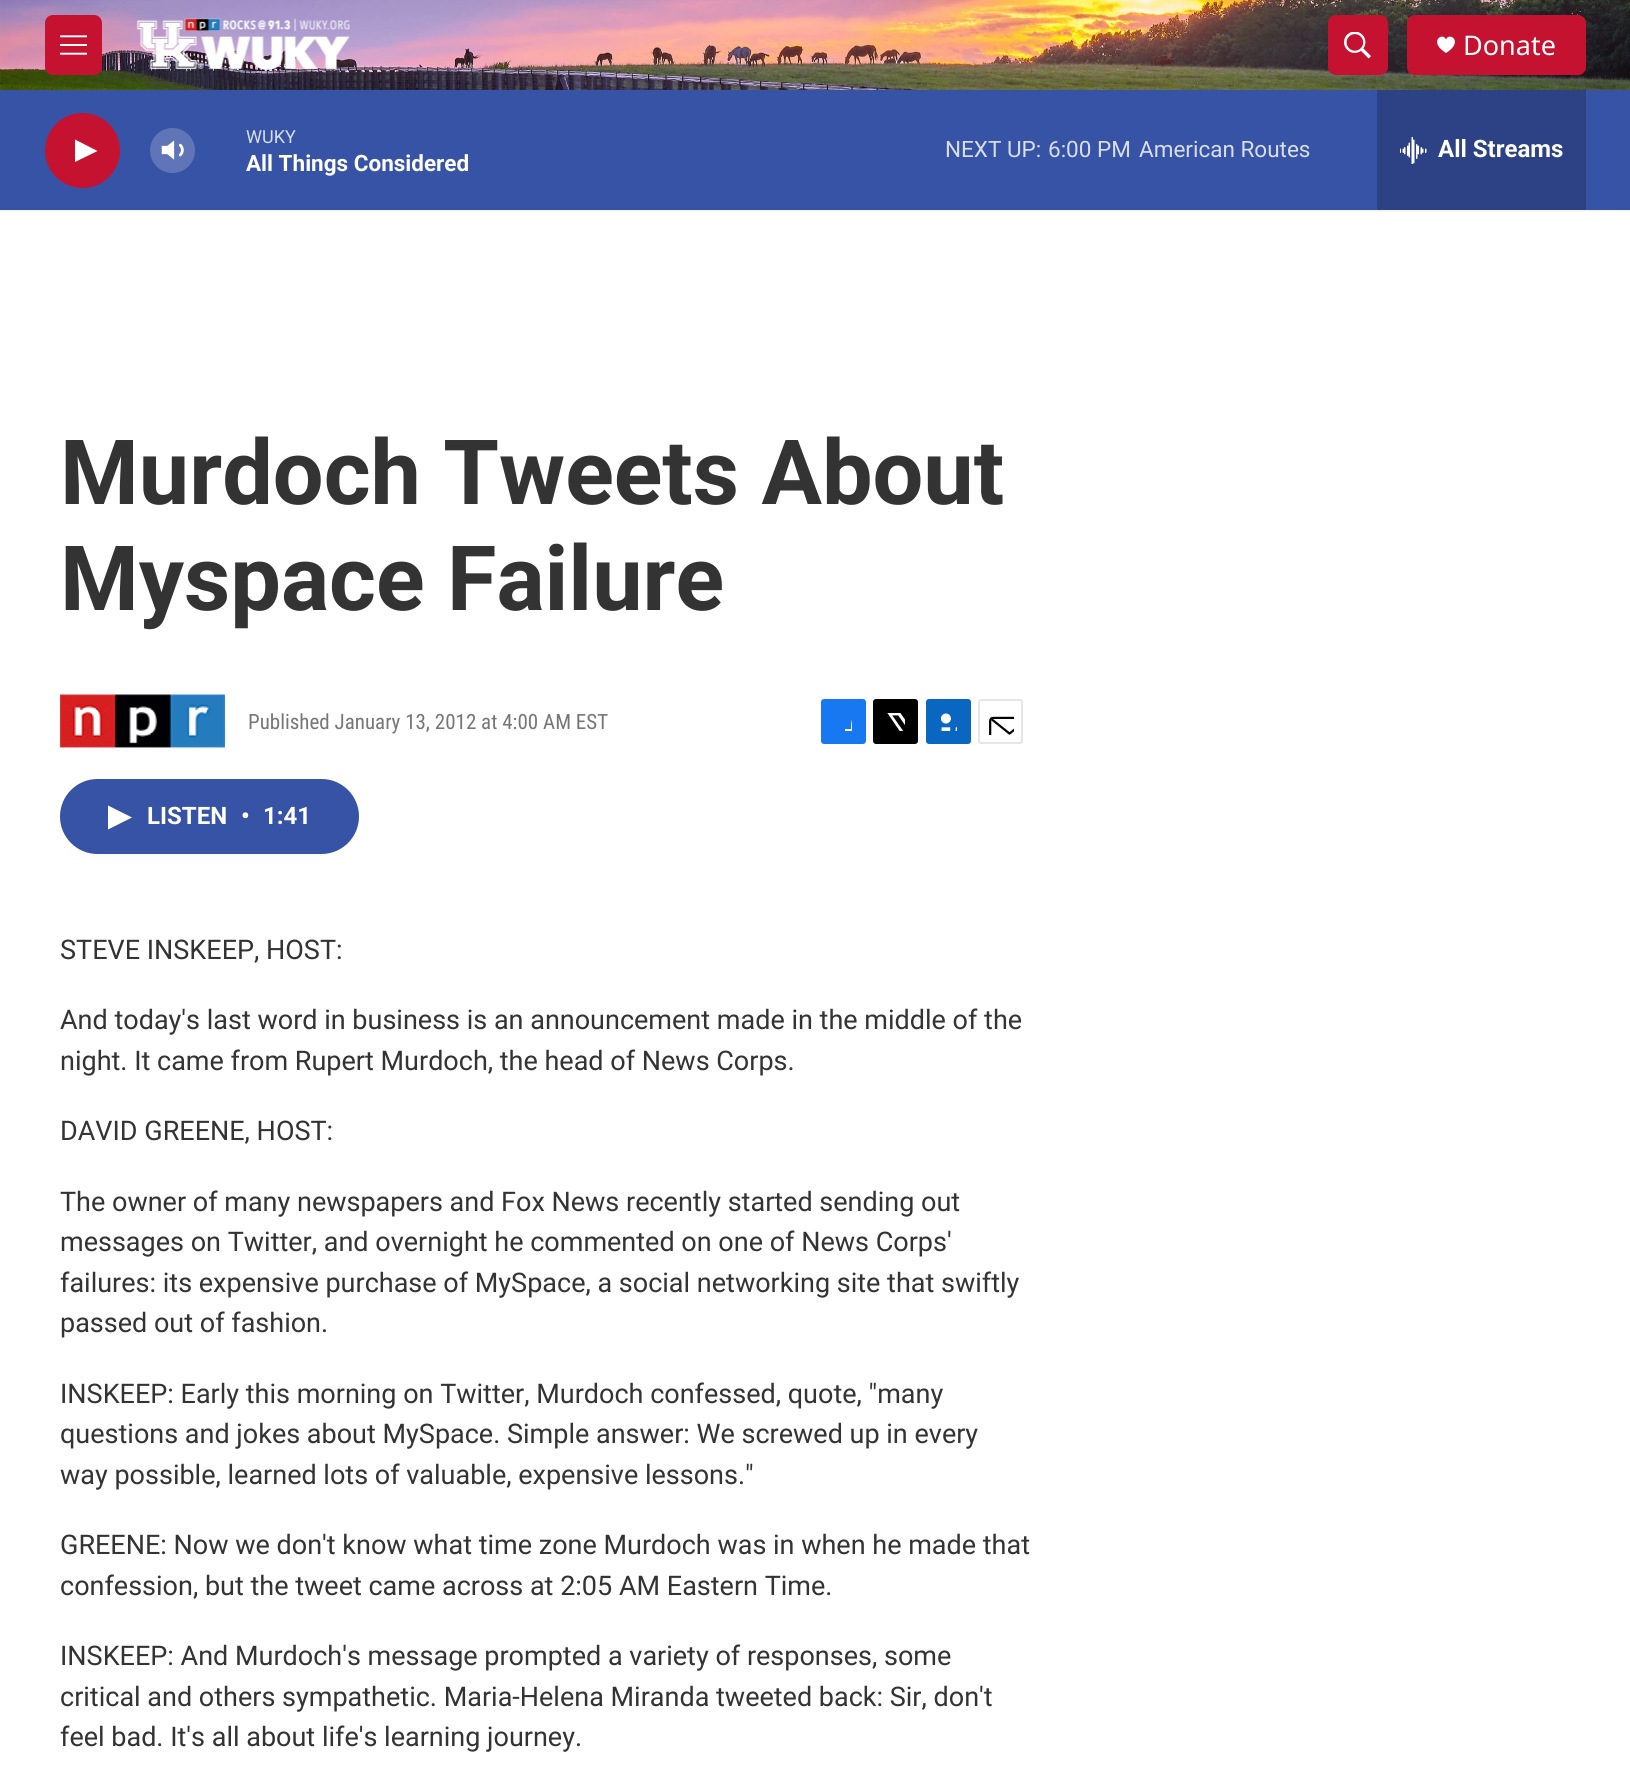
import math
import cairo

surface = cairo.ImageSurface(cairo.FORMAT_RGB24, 1630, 1765)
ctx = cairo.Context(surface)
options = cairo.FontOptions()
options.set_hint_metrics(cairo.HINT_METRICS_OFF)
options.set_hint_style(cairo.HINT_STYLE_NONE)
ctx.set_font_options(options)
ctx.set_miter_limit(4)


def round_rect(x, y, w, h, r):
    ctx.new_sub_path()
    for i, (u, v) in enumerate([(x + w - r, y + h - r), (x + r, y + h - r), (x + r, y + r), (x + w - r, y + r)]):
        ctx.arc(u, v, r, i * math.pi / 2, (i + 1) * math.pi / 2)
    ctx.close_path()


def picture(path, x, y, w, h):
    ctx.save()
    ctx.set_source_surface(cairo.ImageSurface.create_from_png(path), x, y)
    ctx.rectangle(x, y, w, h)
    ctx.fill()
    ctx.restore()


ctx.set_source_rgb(1, 1, 1)
ctx.paint()
ctx.set_source_rgb(0.961, 0.961, 0.961)
ctx.rectangle(0, 210, 1630, 2)
ctx.fill()
picture("img1.png", 0, 0, 1630, 90)
ctx.set_source_rgb(0.769, 0.071, 0.188)
round_rect(45, 15, 57, 60, 8)
ctx.fill()
picture("img2.png", 60, 35, 27, 20)
picture("img3.png", 136, 18, 214, 52)
round_rect(1328, 15, 60, 60, 8)
ctx.fill()
picture("img4.png", 1344, 32, 27, 27)
round_rect(1407, 15, 179, 60, 8)
ctx.fill()
ctx.set_source_rgb(1, 1, 1)
ctx.new_path()
ctx.move_to(1446, 39.5)
ctx.curve_to(1443, 31.5, 1427.5, 41.5, 1446, 53)
ctx.curve_to(1464.5, 41.5, 1449, 31.5, 1446, 39.5)
ctx.close_path()
ctx.fill()
ctx.select_font_face("Noto Sans")
ctx.set_font_size(27)
ctx.move_to(1463, 55)
ctx.show_text("Donate")
ctx.set_source_rgb(0.216, 0.325, 0.647)
ctx.rectangle(0, 90, 1630, 120)
ctx.fill()
ctx.set_source_rgb(0.769, 0.071, 0.188)
ctx.arc(82.5, 150.5, 37.5, 0, 2 * math.pi)
ctx.fill()
ctx.set_source_rgb(1, 1, 1)
ctx.new_path()
ctx.move_to(75, 139.5)
ctx.line_to(97.5, 151)
ctx.line_to(75, 162)
ctx.close_path()
ctx.fill()
picture("img5.png", 161, 140, 23, 20)
ctx.set_source_rgba(1, 1, 1, 0.2)
ctx.arc(172.5, 150.5, 22.5, 0, 2 * math.pi)
ctx.fill()
ctx.select_font_face("Roboto")
ctx.set_font_size(18)
ctx.set_source_rgb(0.843, 0.867, 0.929)
ctx.move_to(246, 143)
ctx.show_text("WUKY")
ctx.select_font_face("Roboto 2", cairo.FONT_SLANT_NORMAL, cairo.FONT_WEIGHT_BOLD)
ctx.set_font_size(22.5)
ctx.set_source_rgb(1, 1, 1)
ctx.move_to(246, 171)
ctx.show_text("All Things Considered")
ctx.select_font_face("Roboto")
ctx.set_source_rgb(0.843, 0.867, 0.929)
ctx.move_to(945, 157)
ctx.show_text("NEXT UP:")
ctx.move_to(1048, 157)
ctx.show_text("6:00 PM")
ctx.move_to(1139, 157)
ctx.show_text("American Routes")
ctx.set_source_rgb(0.173, 0.259, 0.518)
ctx.rectangle(1377, 90, 209, 120)
ctx.fill()
picture("img6.png", 1400, 137, 27, 27)
ctx.select_font_face("Roboto 2", cairo.FONT_SLANT_NORMAL, cairo.FONT_WEIGHT_BOLD)
ctx.set_font_size(24)
ctx.set_source_rgb(1, 1, 1)
ctx.move_to(1438, 157)
ctx.show_text("All Streams")
ctx.select_font_face("Roboto", cairo.FONT_SLANT_NORMAL, cairo.FONT_WEIGHT_BOLD)
ctx.set_font_size(90)
ctx.set_source_rgb(0.2, 0.2, 0.2)
ctx.move_to(60, 504)
ctx.show_text("Murdoch Tweets About")
ctx.move_to(60, 610)
ctx.show_text("Myspace Failure")
picture("img7.png", 60, 694, 165, 55)
ctx.select_font_face("Roboto Condensed")
ctx.set_font_size(21)
ctx.set_source_rgb(0.463, 0.463, 0.463)
ctx.move_to(248, 729)
ctx.show_text("Published January 13, 2012 at 4:00 AM EST")
ctx.set_source_rgb(0.09, 0.471, 0.949)
round_rect(821, 699, 45, 45, 3)
ctx.fill()
ctx.save()
ctx.rectangle(834, 713, 18, 18)
ctx.clip()
ctx.set_source_rgb(1, 1, 1)
ctx.new_path()
ctx.move_to(859, 744)
ctx.line_to(851, 744)
ctx.line_to(851, 737)
ctx.line_to(845, 737)
ctx.line_to(845, 729)
ctx.line_to(851, 729)
ctx.curve_to(851, 717.5, 853, 711.5, 866, 713)
ctx.line_to(866, 720)
ctx.curve_to(858, 720, 859, 722.5, 859, 729)
ctx.line_to(866, 729)
ctx.line_to(865, 737)
ctx.line_to(859, 737)
ctx.close_path()
ctx.fill()
ctx.restore()
ctx.set_source_rgb(0, 0, 0)
round_rect(873, 699, 45, 45, 3)
ctx.fill()
picture("img8.png", 887, 713, 18, 18)
ctx.set_source_rgb(0.039, 0.4, 0.757)
round_rect(926, 699, 45, 45, 3)
ctx.fill()
picture("img9.png", 940, 713, 17, 18)
round_rect(979, 700, 43, 43, 2)
ctx.set_source_rgb(0.902, 0.902, 0.902)
ctx.stroke()
picture("img10.png", 989, 716, 25, 19)
ctx.set_source_rgb(0.216, 0.325, 0.647)
round_rect(60, 779, 299, 75, 37.5)
ctx.fill()
ctx.set_source_rgb(1, 1, 1)
ctx.new_path()
ctx.move_to(108, 805.5)
ctx.line_to(132, 817.5)
ctx.line_to(108, 829.5)
ctx.close_path()
ctx.fill()
ctx.select_font_face("Roboto 2", cairo.FONT_SLANT_NORMAL, cairo.FONT_WEIGHT_BOLD)
ctx.set_font_size(24)
ctx.move_to(147, 824)
ctx.show_text("LISTEN")
ctx.move_to(241, 824)
ctx.show_text("•")
ctx.move_to(263, 824)
ctx.show_text("1:41")
ctx.select_font_face("Roboto")
ctx.set_font_size(27)
ctx.set_source_rgb(0.2, 0.2, 0.2)
ctx.move_to(60, 959)
ctx.show_text("STEVE INSKEEP, HOST:")
ctx.move_to(60, 1029)
ctx.show_text("And today's last word in business is an announcement made in the middle of the")
ctx.move_to(60, 1070)
ctx.show_text("night. It came from Rupert Murdoch, the head of News Corps.")
ctx.move_to(60, 1140)
ctx.show_text("DAVID GREENE, HOST:")
ctx.move_to(60, 1211)
ctx.show_text("The owner of many newspapers and Fox News recently started sending out")
ctx.move_to(60, 1251)
ctx.show_text("messages on Twitter, and overnight he commented on one of News Corps'")
ctx.move_to(60, 1292)
ctx.show_text("failures: its expensive purchase of MySpace, a social networking site that swiftly")
ctx.move_to(60, 1332)
ctx.show_text("passed out of fashion.")
ctx.move_to(60, 1403)
ctx.show_text("INSKEEP: Early this morning on Twitter, Murdoch confessed, quote, \"many")
ctx.move_to(60, 1443)
ctx.show_text("questions and jokes about MySpace. Simple answer: We screwed up in every")
ctx.move_to(60, 1484)
ctx.show_text("way possible, learned lots of valuable, expensive lessons.\"")
ctx.move_to(60, 1554)
ctx.show_text("GREENE: Now we don't know what time zone Murdoch was in when he made that")
ctx.move_to(60, 1595)
ctx.show_text("confession, but the tweet came across at 2:05 AM Eastern Time.")
ctx.move_to(60, 1665)
ctx.show_text("INSKEEP: And Murdoch's message prompted a variety of responses, some")
ctx.move_to(60, 1706)
ctx.show_text("critical and others sympathetic. Maria-Helena Miranda tweeted back: Sir, don't")
ctx.move_to(60, 1746)
ctx.show_text("feel bad. It's all about life's learning journey.")
surface.write_to_png("page.png")
